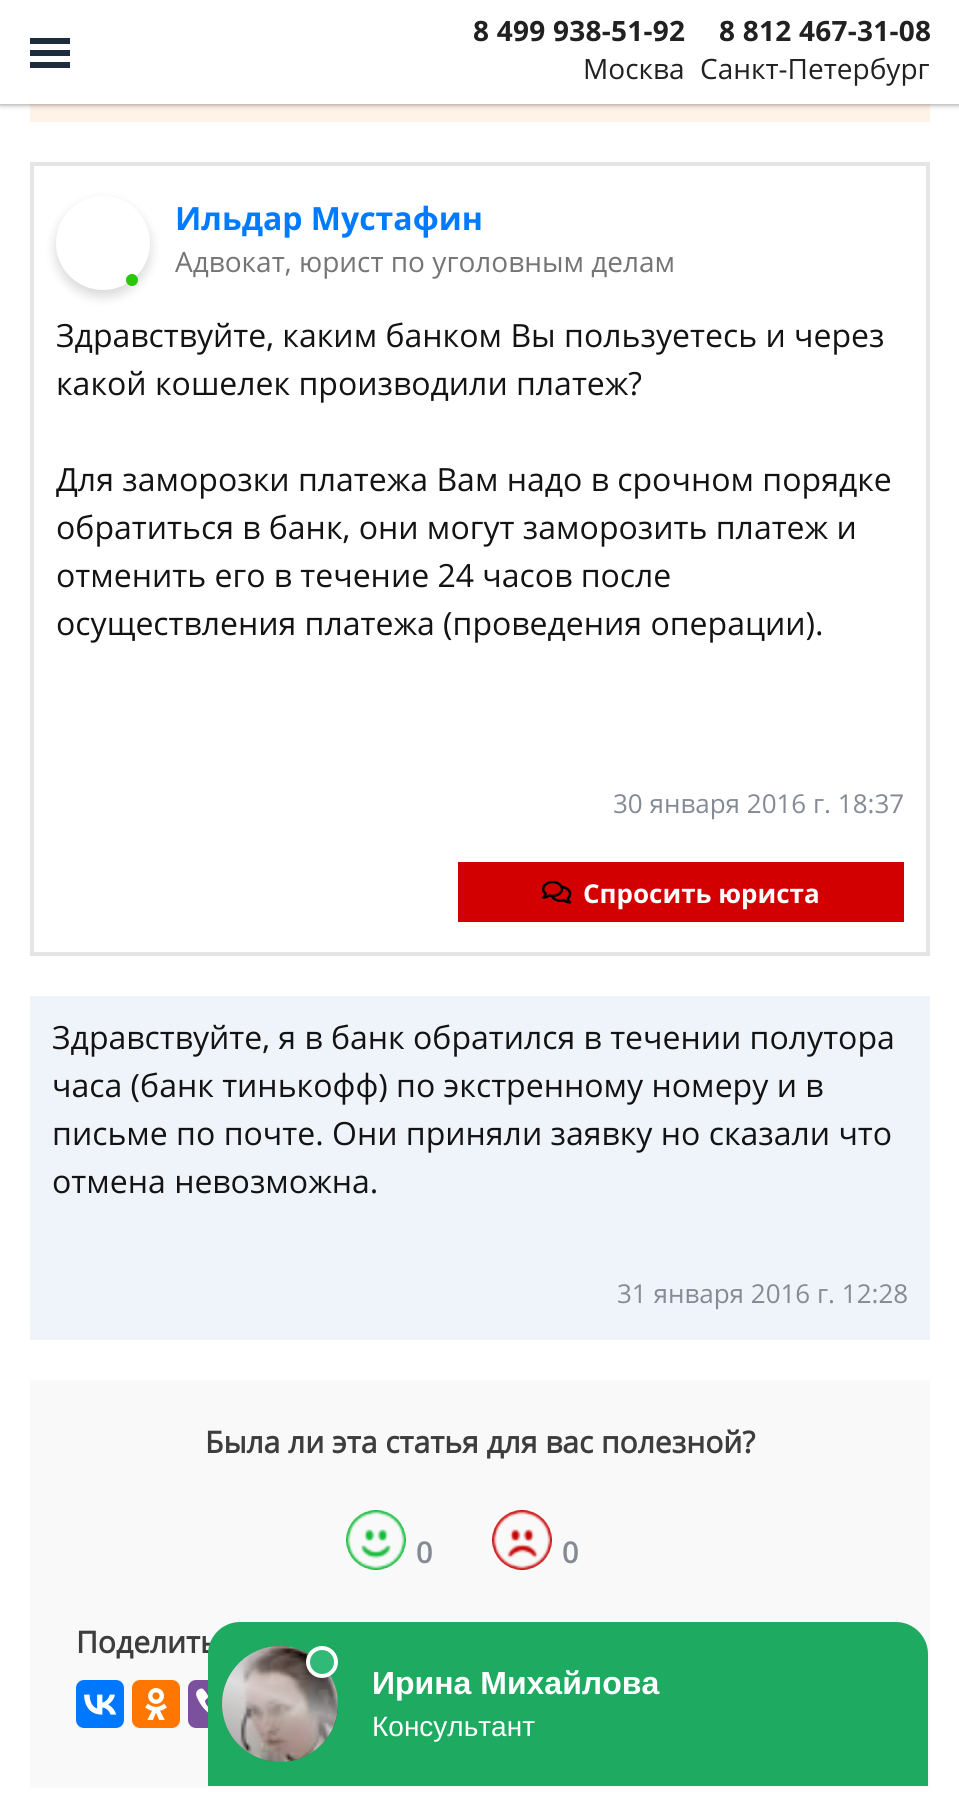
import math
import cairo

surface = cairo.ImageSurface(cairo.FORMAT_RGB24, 959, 1817)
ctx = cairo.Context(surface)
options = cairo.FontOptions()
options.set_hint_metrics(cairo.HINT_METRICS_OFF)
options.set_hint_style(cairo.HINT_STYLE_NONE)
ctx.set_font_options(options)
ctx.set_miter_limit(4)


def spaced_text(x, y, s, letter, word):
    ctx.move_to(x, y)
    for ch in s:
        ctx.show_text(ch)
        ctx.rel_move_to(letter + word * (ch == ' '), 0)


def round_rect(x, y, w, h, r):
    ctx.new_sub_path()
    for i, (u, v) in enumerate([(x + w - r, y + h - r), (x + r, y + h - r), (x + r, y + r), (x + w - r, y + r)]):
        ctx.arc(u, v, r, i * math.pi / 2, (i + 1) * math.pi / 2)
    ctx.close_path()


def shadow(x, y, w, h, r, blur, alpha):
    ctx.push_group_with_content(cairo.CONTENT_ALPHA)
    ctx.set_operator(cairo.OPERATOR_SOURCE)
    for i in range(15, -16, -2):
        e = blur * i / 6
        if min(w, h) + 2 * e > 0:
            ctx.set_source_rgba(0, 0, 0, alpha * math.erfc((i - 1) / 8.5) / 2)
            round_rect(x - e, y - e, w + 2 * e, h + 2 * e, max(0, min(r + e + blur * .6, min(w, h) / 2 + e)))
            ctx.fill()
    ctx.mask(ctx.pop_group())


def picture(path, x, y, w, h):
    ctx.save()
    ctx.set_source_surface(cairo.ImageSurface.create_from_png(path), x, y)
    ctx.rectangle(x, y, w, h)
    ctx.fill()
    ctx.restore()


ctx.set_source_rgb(1, 1, 1)
ctx.paint()
ctx.set_source_rgb(1, 0.949, 0.906)
ctx.rectangle(30, 104, 900, 18)
ctx.fill()
ctx.set_source_rgb(0, 0, 0)
shadow(0, 0, 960, 104, 0, 3, 0.5)
ctx.set_source_rgb(1, 1, 1)
ctx.rectangle(0, 0, 959, 104)
ctx.fill()
ctx.set_source_rgb(0.114, 0.169, 0.243)
ctx.rectangle(30, 38, 40, 6)
ctx.fill()
ctx.rectangle(30, 50, 40, 6)
ctx.fill()
ctx.rectangle(30, 62, 40, 6)
ctx.fill()
ctx.select_font_face("Open Sans", cairo.FONT_SLANT_NORMAL, cairo.FONT_WEIGHT_BOLD)
ctx.set_font_size(28)
ctx.set_source_rgb(0.129, 0.129, 0.129)
spaced_text(473, 41, "8 499 938-51-92", 0.25, 0)
ctx.select_font_face("Open Sans")
ctx.move_to(583, 79)
ctx.show_text("Москва")
ctx.select_font_face("Open Sans", cairo.FONT_SLANT_NORMAL, cairo.FONT_WEIGHT_BOLD)
spaced_text(719, 41, "8 812 467-31-08", 0.25, 0)
ctx.select_font_face("Open Sans")
ctx.move_to(700, 79)
ctx.show_text("Санкт-Петербург")
ctx.rectangle(32, 164, 896, 790)
ctx.set_source_rgb(0.898, 0.898, 0.898)
ctx.set_line_width(4)
ctx.stroke()
ctx.set_source_rgb(0, 0, 0)
shadow(56, 202, 94, 94, 47, 6, 0.16)
ctx.set_source_rgb(1, 1, 1)
ctx.arc(103, 243, 47, 0, 2 * math.pi)
ctx.fill()
ctx.set_source_rgb(0.157, 0.78, 0.039)
ctx.arc(132, 280, 6, 0, 2 * math.pi)
ctx.fill()
ctx.select_font_face("Open Sans", cairo.FONT_SLANT_NORMAL, cairo.FONT_WEIGHT_BOLD)
ctx.set_font_size(32)
ctx.set_source_rgb(0, 0.482, 1)
ctx.move_to(175, 230)
ctx.show_text("Ильдар Мустафин")
ctx.select_font_face("Open Sans")
ctx.set_font_size(28)
ctx.set_source_rgb(0.459, 0.459, 0.459)
ctx.move_to(175, 272)
ctx.show_text("Адвокат, юрист по уголовным делам")
ctx.set_font_size(32)
ctx.set_source_rgb(0.075, 0.075, 0.075)
ctx.move_to(56, 347)
ctx.show_text("Здравствуйте, каким банком Вы пользуетесь и через")
ctx.move_to(56, 395)
ctx.show_text("какой кошелек производили платеж?")
ctx.move_to(56, 491)
ctx.show_text("Для заморозки платежа Вам надо в срочном порядке")
ctx.move_to(56, 539)
ctx.show_text("обратиться в банк, они могут заморозить платеж и")
ctx.move_to(56, 587)
ctx.show_text("отменить его в течение 24 часов после")
ctx.move_to(56, 635)
ctx.show_text("осуществления платежа (проведения операции).")
ctx.set_font_size(26)
ctx.set_source_rgb(0.518, 0.545, 0.58)
ctx.move_to(613, 813)
ctx.show_text("30 января 2016 г. 18:37")
ctx.set_source_rgb(0.824, 0, 0)
ctx.rectangle(458, 862, 446, 60)
ctx.fill()
picture("img1.png", 542, 880, 30, 24)
ctx.select_font_face("Open Sans", cairo.FONT_SLANT_NORMAL, cairo.FONT_WEIGHT_BOLD)
ctx.set_source_rgb(1, 1, 1)
ctx.move_to(583, 903)
ctx.show_text("Спросить юриста")
ctx.set_source_rgb(0.937, 0.957, 0.984)
ctx.rectangle(30, 996, 900, 344)
ctx.fill()
ctx.select_font_face("Open Sans")
ctx.set_font_size(32)
ctx.set_source_rgb(0.075, 0.075, 0.075)
ctx.move_to(52, 1049)
ctx.show_text("Здравствуйте, я в банк обратился в течении полутора")
ctx.move_to(52, 1097)
ctx.show_text("часа (банк тинькофф) по экстренному номеру и в")
ctx.move_to(52, 1145)
ctx.show_text("письме по почте. Они приняли заявку но сказали что")
ctx.move_to(52, 1193)
ctx.show_text("отмена невозможна.")
ctx.set_font_size(26)
ctx.set_source_rgb(0.518, 0.545, 0.58)
ctx.move_to(617, 1303)
ctx.show_text("31 января 2016 г. 12:28")
ctx.set_source_rgb(0.976, 0.976, 0.976)
ctx.rectangle(30, 1380, 900, 408)
ctx.fill()
ctx.select_font_face("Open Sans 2", cairo.FONT_SLANT_NORMAL, cairo.FONT_WEIGHT_BOLD)
ctx.set_font_size(30)
ctx.set_source_rgb(0.239, 0.239, 0.239)
ctx.move_to(205, 1453)
ctx.show_text("Была ли эта статья для вас полезной?")
picture("img2.png", 346, 1510, 60, 60)
ctx.select_font_face("Open Sans SemiBold")
ctx.set_source_rgb(0.518, 0.545, 0.58)
ctx.move_to(416, 1563)
ctx.show_text("0")
picture("img3.png", 492, 1510, 60, 60)
ctx.move_to(562, 1563)
ctx.show_text("0")
ctx.select_font_face("Open Sans 2", cairo.FONT_SLANT_NORMAL, cairo.FONT_WEIGHT_BOLD)
ctx.set_source_rgb(0.239, 0.239, 0.239)
ctx.move_to(76, 1653)
ctx.show_text("Поделить")
ctx.set_source_rgb(0, 0.467, 1)
round_rect(76, 1680, 48, 48, 8)
ctx.fill()
picture("img4.png", 84, 1694, 33, 21)
ctx.set_source_rgb(1, 0.467, 0)
round_rect(132, 1680, 48, 48, 8)
ctx.fill()
picture("img5.png", 145, 1688, 22, 32)
ctx.set_source_rgb(0.482, 0.318, 0.616)
round_rect(188, 1680, 48, 48, 8)
ctx.fill()
picture("img6.png", 196, 1688, 12, 25)
ctx.set_source_rgb(0.118, 0.667, 0.38)
ctx.new_path()
ctx.move_to(240, 1622)
ctx.line_to(896, 1622)
ctx.curve_to(913.5, 1622, 928, 1636.5, 928, 1654)
ctx.line_to(928, 1786)
ctx.line_to(208, 1786)
ctx.line_to(208, 1654)
ctx.curve_to(208, 1636.5, 222.5, 1622, 240, 1622)
ctx.close_path()
ctx.fill()
ctx.set_source_rgb(0.09, 0.502, 0.286)
ctx.arc(280, 1704, 58, 0, 2 * math.pi)
ctx.fill()
picture("img7.png", 222, 1646, 116, 116)
gradient = cairo.LinearGradient(300, 1656, 260, 1765)
gradient.add_color_stop_rgba(0, 1, 1, 1, 0)
gradient.add_color_stop_rgba(0.4, 1, 1, 1, 0.6)
gradient.add_color_stop_rgba(0.6, 1, 1, 1, 0.36)
gradient.add_color_stop_rgba(1, 1, 1, 1, 0)
ctx.set_source(gradient)
ctx.new_path()
ctx.move_to(272, 1646)
ctx.line_to(323, 1665)
ctx.curve_to(332, 1675, 338, 1689, 338, 1704)
ctx.curve_to(338, 1736, 312, 1762, 280, 1762)
ctx.curve_to(248, 1762, 222, 1736, 222, 1704)
ctx.curve_to(222, 1675, 244, 1650, 272, 1646)
ctx.close_path()
ctx.fill()
ctx.set_source_rgb(0.192, 0.725, 0.471)
ctx.arc(322, 1662, 14, 0, 2 * math.pi)
ctx.fill_preserve()
ctx.set_source_rgb(1, 1, 1)
ctx.stroke()
ctx.select_font_face("Liberation Sans", cairo.FONT_SLANT_NORMAL, cairo.FONT_WEIGHT_BOLD)
ctx.set_font_size(32)
ctx.move_to(372, 1694)
ctx.show_text("Ирина Михайлова")
ctx.select_font_face("Liberation Sans")
ctx.set_font_size(28)
ctx.move_to(372, 1736)
ctx.show_text("Консультант")
surface.write_to_png("page.png")
